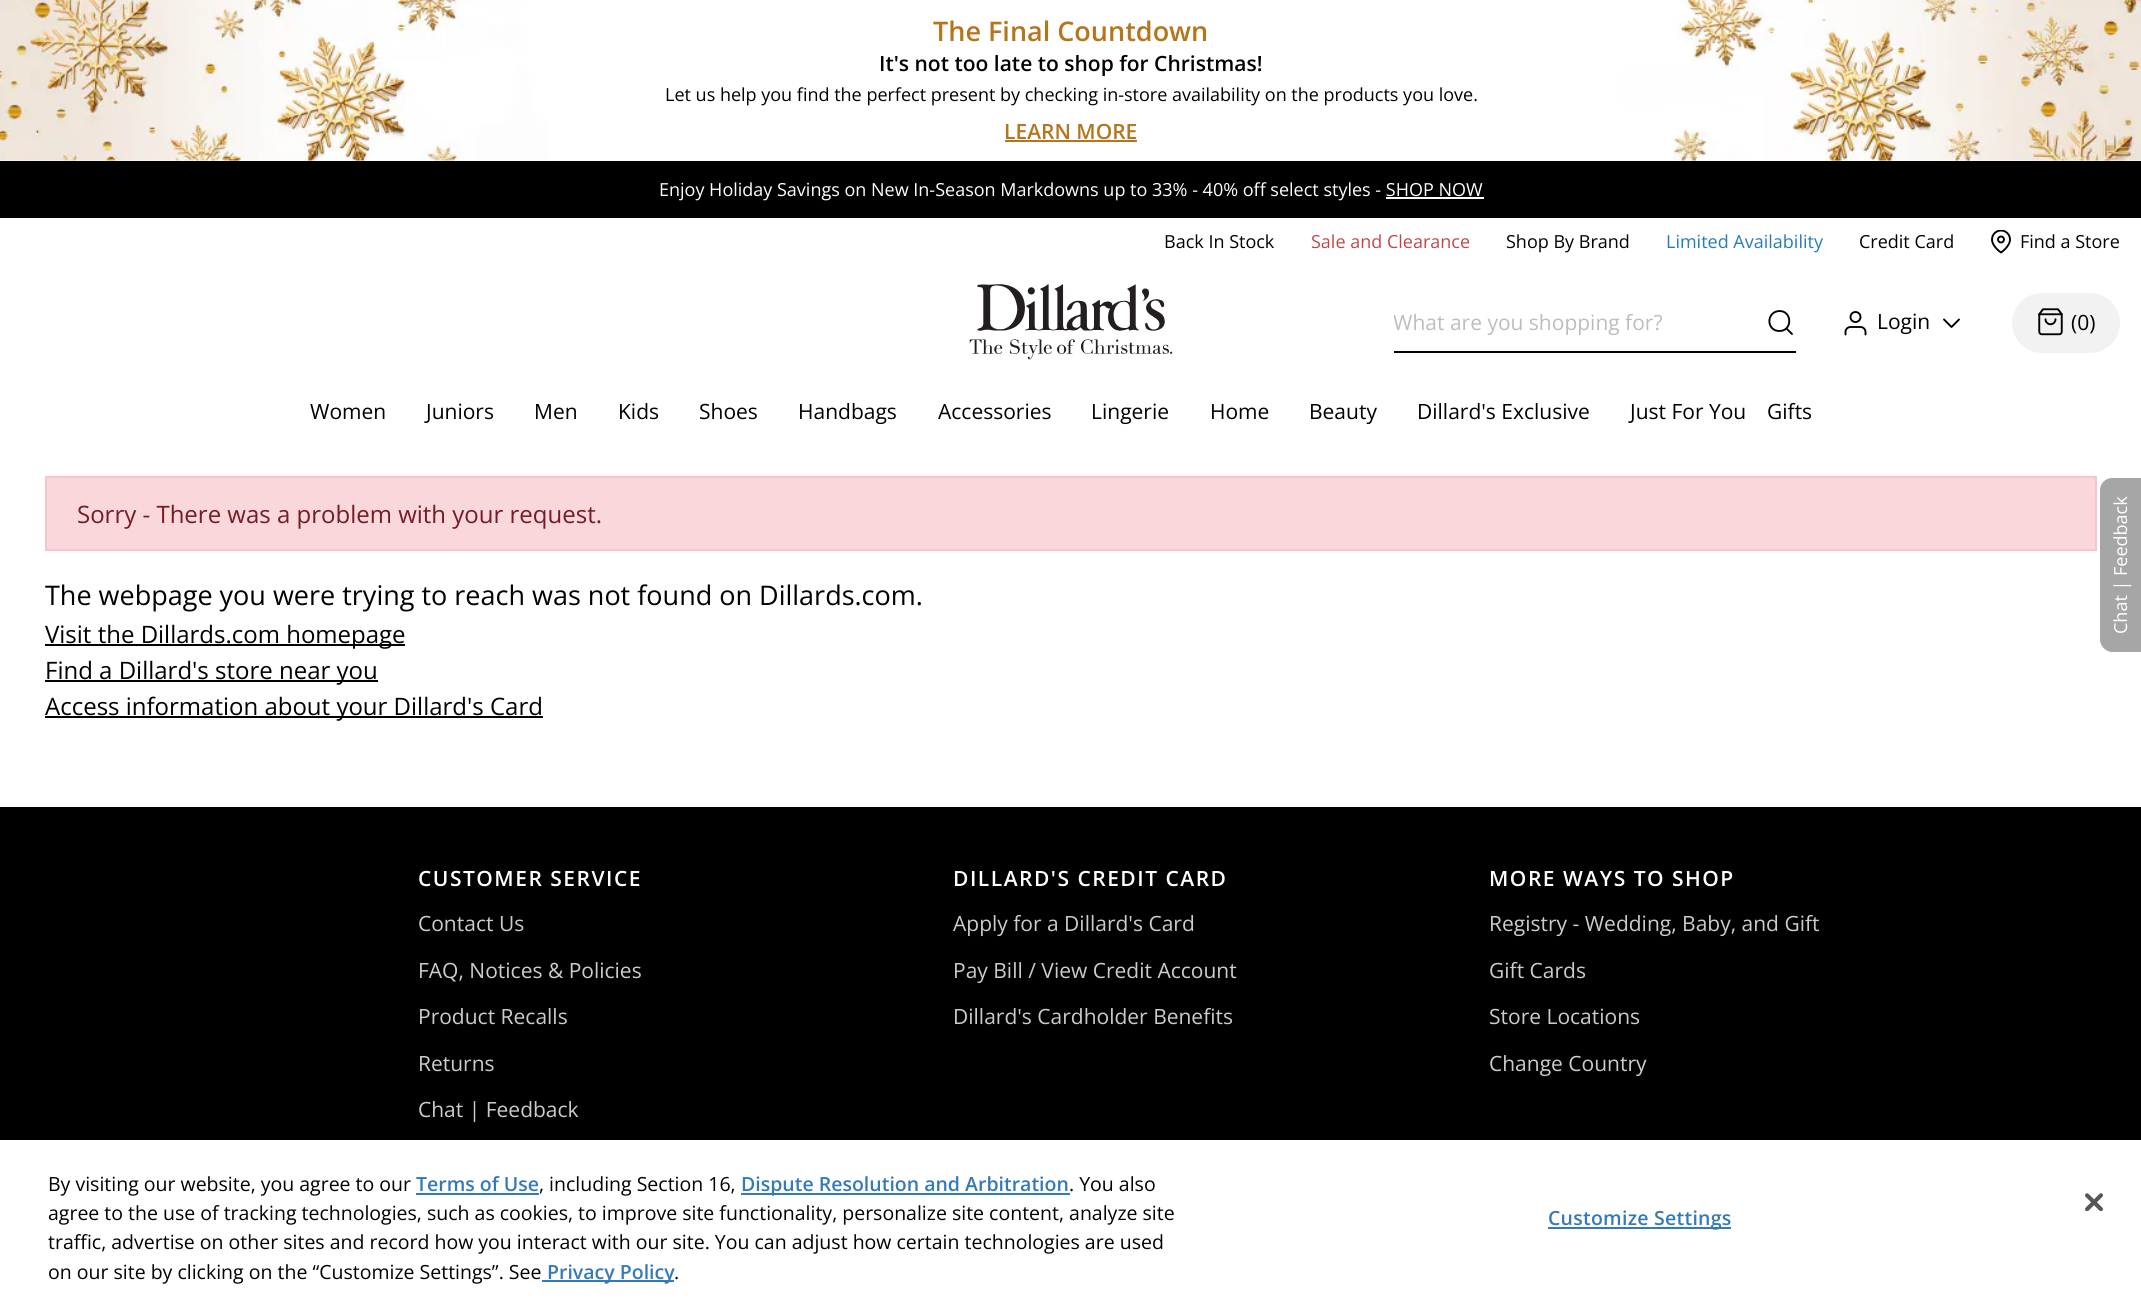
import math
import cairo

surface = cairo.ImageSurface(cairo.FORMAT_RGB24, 2141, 1301)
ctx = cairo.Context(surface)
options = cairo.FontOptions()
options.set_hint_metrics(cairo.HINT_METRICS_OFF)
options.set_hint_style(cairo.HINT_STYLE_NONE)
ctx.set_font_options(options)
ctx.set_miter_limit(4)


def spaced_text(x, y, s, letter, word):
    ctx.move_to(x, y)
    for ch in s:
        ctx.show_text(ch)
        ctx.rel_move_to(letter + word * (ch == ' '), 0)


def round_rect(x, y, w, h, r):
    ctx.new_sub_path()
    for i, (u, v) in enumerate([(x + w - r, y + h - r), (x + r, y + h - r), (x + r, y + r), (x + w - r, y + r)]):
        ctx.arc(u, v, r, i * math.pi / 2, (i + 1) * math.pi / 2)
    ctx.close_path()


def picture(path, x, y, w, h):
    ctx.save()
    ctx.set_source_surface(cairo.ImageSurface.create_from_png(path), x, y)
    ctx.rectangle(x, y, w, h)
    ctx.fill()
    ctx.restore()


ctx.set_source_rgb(1, 1, 1)
ctx.paint()
picture("img1.png", 0, 0, 2141, 161)
ctx.select_font_face("Open Sans SemiBold")
ctx.set_font_size(27)
ctx.set_source_rgb(0.71, 0.459, 0.11)
ctx.move_to(933, 41)
ctx.show_text("The Final Countdown")
ctx.set_font_size(21)
ctx.set_source_rgb(0, 0, 0)
ctx.move_to(879, 71)
ctx.show_text("It's not too late to shop for Christmas!")
ctx.select_font_face("Open Sans")
ctx.set_font_size(18)
ctx.move_to(665, 101)
ctx.show_text("Let us help you find the perfect present by checking in-store availability on the products you love.")
ctx.select_font_face("Open Sans SemiBold")
ctx.set_font_size(21)
ctx.set_source_rgb(0.71, 0.459, 0.11)
ctx.move_to(1004, 139)
ctx.show_text("LEARN MORE")
ctx.rectangle(1005, 140, 132, 2)
ctx.fill()
ctx.set_source_rgb(0, 0, 0)
ctx.rectangle(0, 161, 2141, 57)
ctx.fill()
ctx.select_font_face("Open Sans")
ctx.set_font_size(18)
ctx.set_source_rgb(1, 1, 1)
ctx.move_to(659, 196)
ctx.show_text("Enjoy Holiday Savings on New In-Season Markdowns up to 33% - 40% off select styles - SHOP NOW")
ctx.rectangle(1386, 197, 98, 2)
ctx.fill()
ctx.set_source_rgb(0, 0, 0)
ctx.move_to(1164, 248)
ctx.show_text("Back In Stock")
ctx.set_source_rgb(0.753, 0.278, 0.278)
ctx.move_to(1311, 248)
ctx.show_text("Sale and Clearance")
ctx.set_source_rgb(0, 0, 0)
ctx.move_to(1506, 248)
ctx.show_text("Shop By Brand")
ctx.set_source_rgb(0.149, 0.486, 0.71)
ctx.move_to(1666, 248)
ctx.show_text("Limited Availability")
ctx.set_source_rgb(0, 0, 0)
ctx.move_to(1859, 248)
ctx.show_text("Credit Card")
picture("img2.png", 1991, 230, 20, 24)
ctx.move_to(2020, 248)
ctx.show_text("Find a Store")
picture("img3.png", 969, 284, 204, 76)
ctx.rectangle(1394, 351, 402, 2)
ctx.fill()
ctx.save()
ctx.rectangle(1394, 308, 354, 28)
ctx.clip()
ctx.set_font_size(21)
ctx.set_source_rgb(0.741, 0.741, 0.741)
ctx.move_to(1393, 330)
ctx.show_text("What are you shopping for?")
ctx.restore()
ctx.new_path()
ctx.move_to(1779.5, 331)
ctx.curve_to(1792.5, 331, 1792.5, 311, 1779.5, 311)
ctx.curve_to(1766, 311.5, 1766, 331, 1779.5, 331)
ctx.close_path()
ctx.move_to(1792, 334)
ctx.line_to(1786.5, 328.5)
ctx.set_line_width(1.9)
ctx.set_line_cap(cairo.LINE_CAP_ROUND)
ctx.set_line_join(cairo.LINE_JOIN_ROUND)
ctx.stroke()
picture("img4.png", 1844, 311, 23, 25)
ctx.set_font_size(21)
ctx.move_to(1877, 329)
ctx.show_text("Login")
ctx.new_path()
ctx.move_to(1944, 319.5)
ctx.line_to(1951.5, 327)
ctx.line_to(1959, 319.5)
ctx.stroke()
ctx.set_source_rgb(0.949, 0.949, 0.949)
round_rect(2012, 293, 108, 60, 30)
ctx.fill()
picture("img5.png", 2038, 308, 25, 28)
ctx.set_source_rgb(0, 0, 0)
ctx.move_to(2071, 330)
ctx.show_text("(0)")
ctx.move_to(310, 419)
ctx.show_text("Women")
ctx.move_to(426, 419)
ctx.show_text("Juniors")
ctx.move_to(534, 419)
ctx.show_text("Men")
ctx.move_to(618, 419)
ctx.show_text("Kids")
ctx.move_to(699, 419)
ctx.show_text("Shoes")
ctx.move_to(798, 419)
ctx.show_text("Handbags")
ctx.move_to(938, 419)
ctx.show_text("Accessories")
ctx.move_to(1091, 419)
ctx.show_text("Lingerie")
ctx.move_to(1210, 419)
ctx.show_text("Home")
ctx.move_to(1309, 419)
ctx.show_text("Beauty")
ctx.move_to(1417, 419)
ctx.show_text("Dillard's Exclusive")
ctx.move_to(1630, 419)
ctx.show_text("Just For You")
ctx.move_to(1767, 419)
ctx.show_text("Gifts")
ctx.set_source_rgb(0.973, 0.843, 0.855)
ctx.rectangle(46, 477, 2050, 73)
ctx.fill_preserve()
ctx.set_source_rgb(0.961, 0.776, 0.796)
ctx.set_line_width(2)
ctx.set_line_cap(cairo.LINE_CAP_BUTT)
ctx.set_line_join(cairo.LINE_JOIN_MITER)
ctx.stroke()
ctx.set_font_size(24)
ctx.set_source_rgb(0.447, 0.11, 0.141)
ctx.move_to(77, 523)
ctx.show_text("Sorry - There was a problem with your request.")
ctx.set_font_size(27)
ctx.set_source_rgb(0, 0, 0)
ctx.move_to(45, 605)
ctx.show_text("The webpage you were trying to reach was not found on Dillards.com.")
ctx.rectangle(45, 644, 360, 2)
ctx.fill()
ctx.set_font_size(24)
ctx.move_to(45, 643)
ctx.show_text("Visit the Dillards.com homepage")
ctx.rectangle(45, 680, 333, 2)
ctx.fill()
ctx.move_to(45, 679)
ctx.show_text("Find a Dillard's store near you")
ctx.rectangle(45, 716, 498, 2)
ctx.fill()
ctx.move_to(45, 715)
ctx.show_text("Access information about your Dillard's Card")
ctx.rectangle(0, 807, 2141, 333)
ctx.fill()
ctx.select_font_face("Open Sans SemiBold")
ctx.set_font_size(21)
ctx.set_source_rgb(1, 1, 1)
spaced_text(418, 886, "CUSTOMER SERVICE", 1.5, 0)
ctx.select_font_face("Open Sans")
ctx.set_source_rgb(0.8, 0.8, 0.8)
ctx.move_to(418, 931)
ctx.show_text("Contact Us")
ctx.move_to(418, 978)
ctx.show_text("FAQ, Notices & Policies")
ctx.move_to(418, 1024)
ctx.show_text("Product Recalls")
ctx.move_to(418, 1071)
ctx.show_text("Returns")
ctx.move_to(418, 1117)
ctx.show_text("Chat | Feedback")
ctx.select_font_face("Open Sans SemiBold")
ctx.set_source_rgb(1, 1, 1)
spaced_text(953, 886, "DILLARD'S CREDIT CARD", 1.5, 0)
ctx.select_font_face("Open Sans")
ctx.set_source_rgb(0.8, 0.8, 0.8)
ctx.move_to(953, 931)
ctx.show_text("Apply for a Dillard's Card")
ctx.move_to(953, 978)
ctx.show_text("Pay Bill / View Credit Account")
ctx.move_to(953, 1024)
ctx.show_text("Dillard's Cardholder Benefits")
ctx.select_font_face("Open Sans SemiBold")
ctx.set_source_rgb(1, 1, 1)
spaced_text(1489, 886, "MORE WAYS TO SHOP", 1.5, 0)
ctx.select_font_face("Open Sans")
ctx.set_source_rgb(0.8, 0.8, 0.8)
ctx.move_to(1489, 931)
ctx.show_text("Registry - Wedding, Baby, and Gift")
ctx.move_to(1489, 978)
ctx.show_text("Gift Cards")
ctx.move_to(1489, 1024)
ctx.show_text("Store Locations")
ctx.move_to(1489, 1071)
ctx.show_text("Change Country")
ctx.set_source_rgb(0.651, 0.651, 0.651)
ctx.new_path()
ctx.move_to(2100, 640)
ctx.line_to(2100, 490)
ctx.curve_to(2100, 483, 2106, 478, 2112, 478)
ctx.line_to(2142, 478)
ctx.line_to(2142, 652)
ctx.line_to(2112, 652)
ctx.curve_to(2106, 652, 2100, 646, 2100, 640)
ctx.close_path()
ctx.fill()
ctx.set_font_size(18)
ctx.set_source_rgb(1, 1, 1)
ctx.save()
ctx.translate(2127, 634)
ctx.rotate(-90 * math.pi / 180)
ctx.move_to(0, 0)
ctx.show_text("Chat | Feedback")
ctx.restore()
ctx.set_font_size(19.5)
ctx.set_source_rgb(0, 0, 0)
ctx.move_to(48, 1191)
ctx.show_text("By visiting our website, you agree to our")
ctx.select_font_face("Open Sans SemiBold")
ctx.set_source_rgb(0.2, 0.478, 0.718)
ctx.move_to(416, 1191)
ctx.show_text("Terms of Use")
ctx.rectangle(416, 1193, 123, 2)
ctx.fill()
ctx.select_font_face("Open Sans")
ctx.set_source_rgb(0, 0, 0)
ctx.move_to(539, 1191)
ctx.show_text(", including Section 16,")
ctx.set_source_rgb(0.2, 0.478, 0.718)
ctx.rectangle(741, 1193, 329, 2)
ctx.fill()
ctx.select_font_face("Open Sans SemiBold")
ctx.move_to(741, 1191)
ctx.show_text("Dispute Resolution and Arbitration")
ctx.select_font_face("Open Sans")
ctx.set_source_rgb(0, 0, 0)
ctx.move_to(1069, 1191)
ctx.show_text(". You also")
ctx.move_to(48, 1220)
ctx.show_text("agree to the use of tracking technologies, such as cookies, to improve site functionality, personalize site content, analyze site")
ctx.move_to(48, 1249)
ctx.show_text("traffic, advertise on other sites and record how you interact with our site. You can adjust how certain technologies are used")
ctx.move_to(48, 1279)
ctx.show_text("on our site by clicking on the “Customize Settings”. See")
ctx.set_source_rgb(0.2, 0.478, 0.718)
ctx.rectangle(542, 1280, 132, 2)
ctx.fill()
ctx.select_font_face("Open Sans SemiBold")
ctx.move_to(547, 1279)
ctx.show_text("Privacy Policy")
ctx.select_font_face("Open Sans")
ctx.set_source_rgb(0, 0, 0)
ctx.move_to(674, 1279)
ctx.show_text(".")
ctx.set_source_rgb(0.2, 0.478, 0.718)
ctx.rectangle(1548, 1227, 183, 2)
ctx.fill()
ctx.select_font_face("Open Sans SemiBold")
spaced_text(1548, 1225, "Customize Settings", 0.25, 0)
picture("img6.png", 2085, 1193, 18, 18)
surface.write_to_png("page.png")
